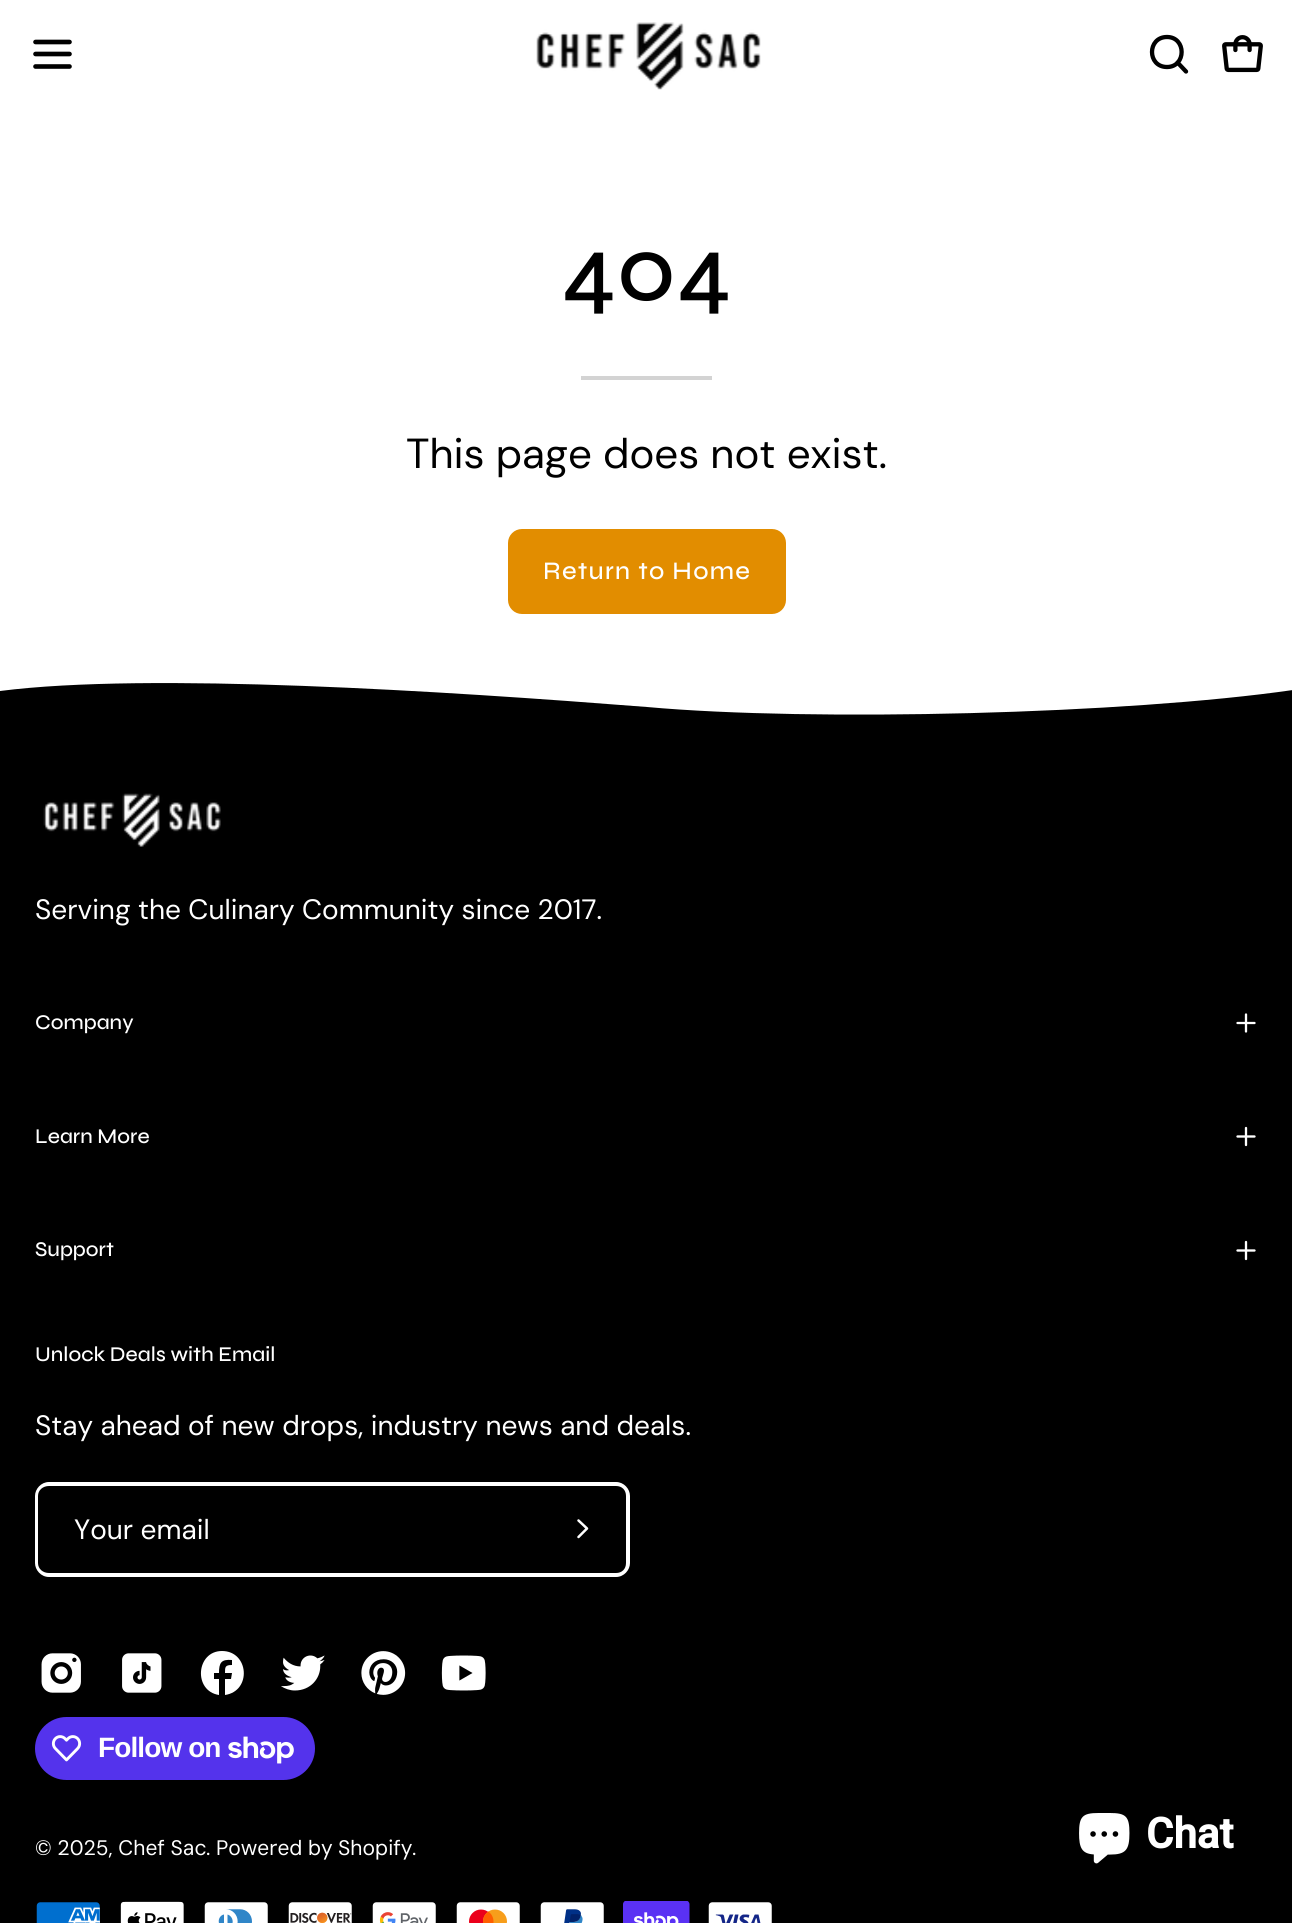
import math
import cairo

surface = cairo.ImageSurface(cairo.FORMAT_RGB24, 1292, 1923)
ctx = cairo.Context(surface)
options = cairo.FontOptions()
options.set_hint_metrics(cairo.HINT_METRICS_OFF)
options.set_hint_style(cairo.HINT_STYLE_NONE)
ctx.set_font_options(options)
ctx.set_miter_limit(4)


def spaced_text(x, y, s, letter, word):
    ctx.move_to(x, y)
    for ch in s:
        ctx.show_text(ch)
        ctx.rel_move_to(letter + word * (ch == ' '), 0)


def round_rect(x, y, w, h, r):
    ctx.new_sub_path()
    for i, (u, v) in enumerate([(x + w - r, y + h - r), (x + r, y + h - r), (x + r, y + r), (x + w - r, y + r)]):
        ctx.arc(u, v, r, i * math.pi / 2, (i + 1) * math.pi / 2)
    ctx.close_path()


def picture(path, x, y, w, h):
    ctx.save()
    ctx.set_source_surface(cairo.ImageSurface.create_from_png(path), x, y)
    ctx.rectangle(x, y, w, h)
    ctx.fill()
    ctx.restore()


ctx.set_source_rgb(1, 1, 1)
ctx.paint()
ctx.new_path()
ctx.move_to(35.5, 54)
ctx.line_to(69.5, 54)
ctx.move_to(35.5, 42)
ctx.line_to(69.5, 42)
ctx.move_to(35.5, 66.5)
ctx.line_to(69.5, 66.5)
ctx.set_source_rgb(0, 0, 0)
ctx.set_line_width(4.6)
ctx.set_line_cap(cairo.LINE_CAP_ROUND)
ctx.set_line_join(cairo.LINE_JOIN_ROUND)
ctx.stroke()
picture("img1.png", 536, 22, 225, 68)
ctx.new_path()
ctx.move_to(1167, 67)
ctx.curve_to(1186.5, 67, 1186.5, 37, 1167, 37)
ctx.curve_to(1147, 37, 1147, 67, 1167, 67)
ctx.close_path()
ctx.move_to(1177.5, 62.5)
ctx.line_to(1186, 71.5)
ctx.set_line_width(4.3)
ctx.stroke()
picture("img2.png", 1222, 35, 41, 38)
ctx.select_font_face("Syne Medium")
ctx.set_font_size(94)
ctx.move_to(561, 300)
ctx.show_text("404")
ctx.set_source_rgb(0.827, 0.827, 0.827)
ctx.rectangle(581, 376, 131, 4)
ctx.fill()
ctx.select_font_face("DM Sans")
ctx.set_font_size(42)
ctx.set_source_rgb(0, 0, 0)
ctx.move_to(406, 468)
ctx.show_text("This page does not exist.")
ctx.set_source_rgb(0.886, 0.553, 0)
round_rect(508, 529, 278, 85, 14)
ctx.fill()
ctx.select_font_face("Syne Medium")
ctx.set_font_size(25.25)
ctx.set_source_rgb(1, 1, 1)
spaced_text(543, 579, "Return to Home", 1.25, 0)
ctx.set_source_rgb(0, 0, 0)
ctx.rectangle(0, 770, 1292, 1153)
ctx.fill()
ctx.new_path()
ctx.move_to(0, 691)
ctx.curve_to(148, 672, 443, 691, 647, 707)
ctx.curve_to(813, 722, 1127, 714, 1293, 690)
ctx.line_to(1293, 733)
ctx.line_to(0, 733)
ctx.fill()
ctx.save()
ctx.rectangle(0, 683, 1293, 87)
ctx.clip()
ctx.new_path()
ctx.move_to(0, 709)
ctx.curve_to(148, 693, 425, 698, 647, 715)
ctx.curve_to(794, 726, 1127, 730, 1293, 710)
ctx.line_to(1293, 798)
ctx.line_to(0, 798)
ctx.close_path()
ctx.fill()
ctx.restore()
picture("img3.png", 43, 793, 178, 54)
ctx.select_font_face("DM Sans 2")
ctx.set_font_size(28)
ctx.set_source_rgb(1, 1, 1)
ctx.move_to(35, 919)
ctx.show_text("Serving the Culinary Community since 2017.")
ctx.select_font_face("Syne Medium")
ctx.set_font_size(21)
ctx.move_to(35, 1029)
ctx.show_text("Company")
ctx.new_path()
ctx.move_to(1237.5, 1023)
ctx.line_to(1254.5, 1023)
ctx.move_to(1246, 1014.5)
ctx.line_to(1246, 1031.5)
ctx.move_to(1237.5, 1023)
ctx.line_to(1254.5, 1023)
ctx.set_line_width(2.3)
ctx.stroke()
ctx.move_to(35, 1143)
ctx.show_text("Learn More")
ctx.new_path()
ctx.move_to(1237.5, 1136.5)
ctx.line_to(1254.5, 1136.5)
ctx.move_to(1246, 1128)
ctx.line_to(1246, 1145)
ctx.stroke()
ctx.move_to(35, 1256)
ctx.show_text("Support")
ctx.new_path()
ctx.move_to(1237.5, 1250.5)
ctx.line_to(1254.5, 1250.5)
ctx.move_to(1246, 1242)
ctx.line_to(1246, 1259)
ctx.stroke()
ctx.move_to(35, 1361)
ctx.show_text("Unlock Deals with Email")
ctx.select_font_face("DM Sans 2")
ctx.set_font_size(28)
ctx.move_to(35, 1435)
ctx.show_text("Stay ahead of new drops, industry news and deals.")
ctx.set_fill_rule(cairo.FILL_RULE_EVEN_ODD)
ctx.new_path()
ctx.move_to(49, 1482)
ctx.line_to(536, 1482)
ctx.line_to(536, 1577)
ctx.line_to(49, 1577)
ctx.curve_to(41, 1577, 35, 1570, 35, 1563)
ctx.line_to(35, 1496)
ctx.curve_to(35, 1489, 41, 1482, 49, 1482)
ctx.close_path()
ctx.move_to(49, 1486)
ctx.line_to(536, 1486)
ctx.line_to(536, 1573)
ctx.line_to(49, 1573)
ctx.curve_to(43, 1573, 38, 1569, 38, 1563)
ctx.line_to(38, 1496)
ctx.curve_to(38, 1490, 43, 1486, 49, 1486)
ctx.close_path()
ctx.fill()
ctx.move_to(74, 1539)
ctx.show_text("Your email")
ctx.new_path()
ctx.move_to(536, 1482)
ctx.line_to(616, 1482)
ctx.curve_to(624, 1482, 630, 1489, 630, 1496)
ctx.line_to(630, 1563)
ctx.curve_to(630, 1570, 624, 1577, 616, 1577)
ctx.line_to(536, 1577)
ctx.close_path()
ctx.move_to(536, 1486)
ctx.line_to(616, 1486)
ctx.curve_to(622, 1486, 626, 1490, 626, 1496)
ctx.line_to(626, 1563)
ctx.curve_to(626, 1569, 622, 1573, 616, 1573)
ctx.line_to(536, 1573)
ctx.close_path()
ctx.fill()
ctx.new_path()
ctx.move_to(578.5, 1520.5)
ctx.line_to(587, 1528.5)
ctx.line_to(578.5, 1537)
ctx.set_line_width(2.5)
ctx.stroke()
picture("img4.png", 41, 1653, 40, 40)
picture("img5.png", 122, 1653, 40, 40)
ctx.set_fill_rule(cairo.FILL_RULE_WINDING)
ctx.new_path()
ctx.move_to(222, 1651)
ctx.curve_to(196, 1651, 193, 1691, 219, 1695)
ctx.line_to(219, 1679)
ctx.line_to(214, 1679)
ctx.line_to(214, 1673)
ctx.line_to(219, 1673)
ctx.curve_to(219, 1663, 221, 1659, 232, 1660)
ctx.line_to(232, 1665)
ctx.curve_to(225, 1665, 225, 1667, 225, 1673)
ctx.line_to(232, 1673)
ctx.line_to(231, 1679)
ctx.line_to(225, 1679)
ctx.line_to(225, 1695)
ctx.curve_to(252, 1691, 249, 1651, 222, 1651)
ctx.close_path()
ctx.fill()
picture("img6.png", 281, 1655, 44, 36)
picture("img7.png", 361, 1651, 45, 44)
picture("img8.png", 441, 1655, 45, 36)
ctx.set_source_rgb(0.329, 0.2, 0.922)
round_rect(35, 1717, 280, 63, 31.5)
ctx.fill()
picture("img9.png", 51, 1735, 31, 27)
ctx.select_font_face("Liberation Sans", cairo.FONT_SLANT_NORMAL, cairo.FONT_WEIGHT_BOLD)
ctx.set_source_rgb(1, 1, 1)
spaced_text(98, 1757, "Follow on", -0.9, 0)
picture("img10.png", 228, 1736, 66, 28)
ctx.select_font_face("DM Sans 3")
ctx.set_font_size(21)
ctx.move_to(35, 1855)
ctx.show_text("© 2025, Chef Sac")
ctx.move_to(206, 1855)
ctx.show_text(".")
ctx.move_to(216, 1855)
ctx.show_text("Powered by")
ctx.move_to(338, 1855)
ctx.show_text("Shopify")
ctx.move_to(412, 1855)
ctx.show_text(".")
picture("img11.png", 36, 1902, 64, 21)
picture("img12.png", 120, 1901, 64, 22)
picture("img13.png", 204, 1902, 64, 21)
picture("img14.png", 288, 1902, 64, 21)
picture("img15.png", 372, 1902, 64, 21)
picture("img16.png", 456, 1902, 64, 21)
picture("img17.png", 540, 1902, 64, 21)
picture("img18.png", 623, 1901, 67, 22)
picture("img19.png", 708, 1902, 64, 21)
picture("img20.png", 1079, 1813, 51, 51)
ctx.select_font_face("Roboto", cairo.FONT_SLANT_NORMAL, cairo.FONT_WEIGHT_BOLD)
ctx.set_font_size(42)
ctx.move_to(1146, 1848)
ctx.show_text("Chat")
surface.write_to_png("page.png")
